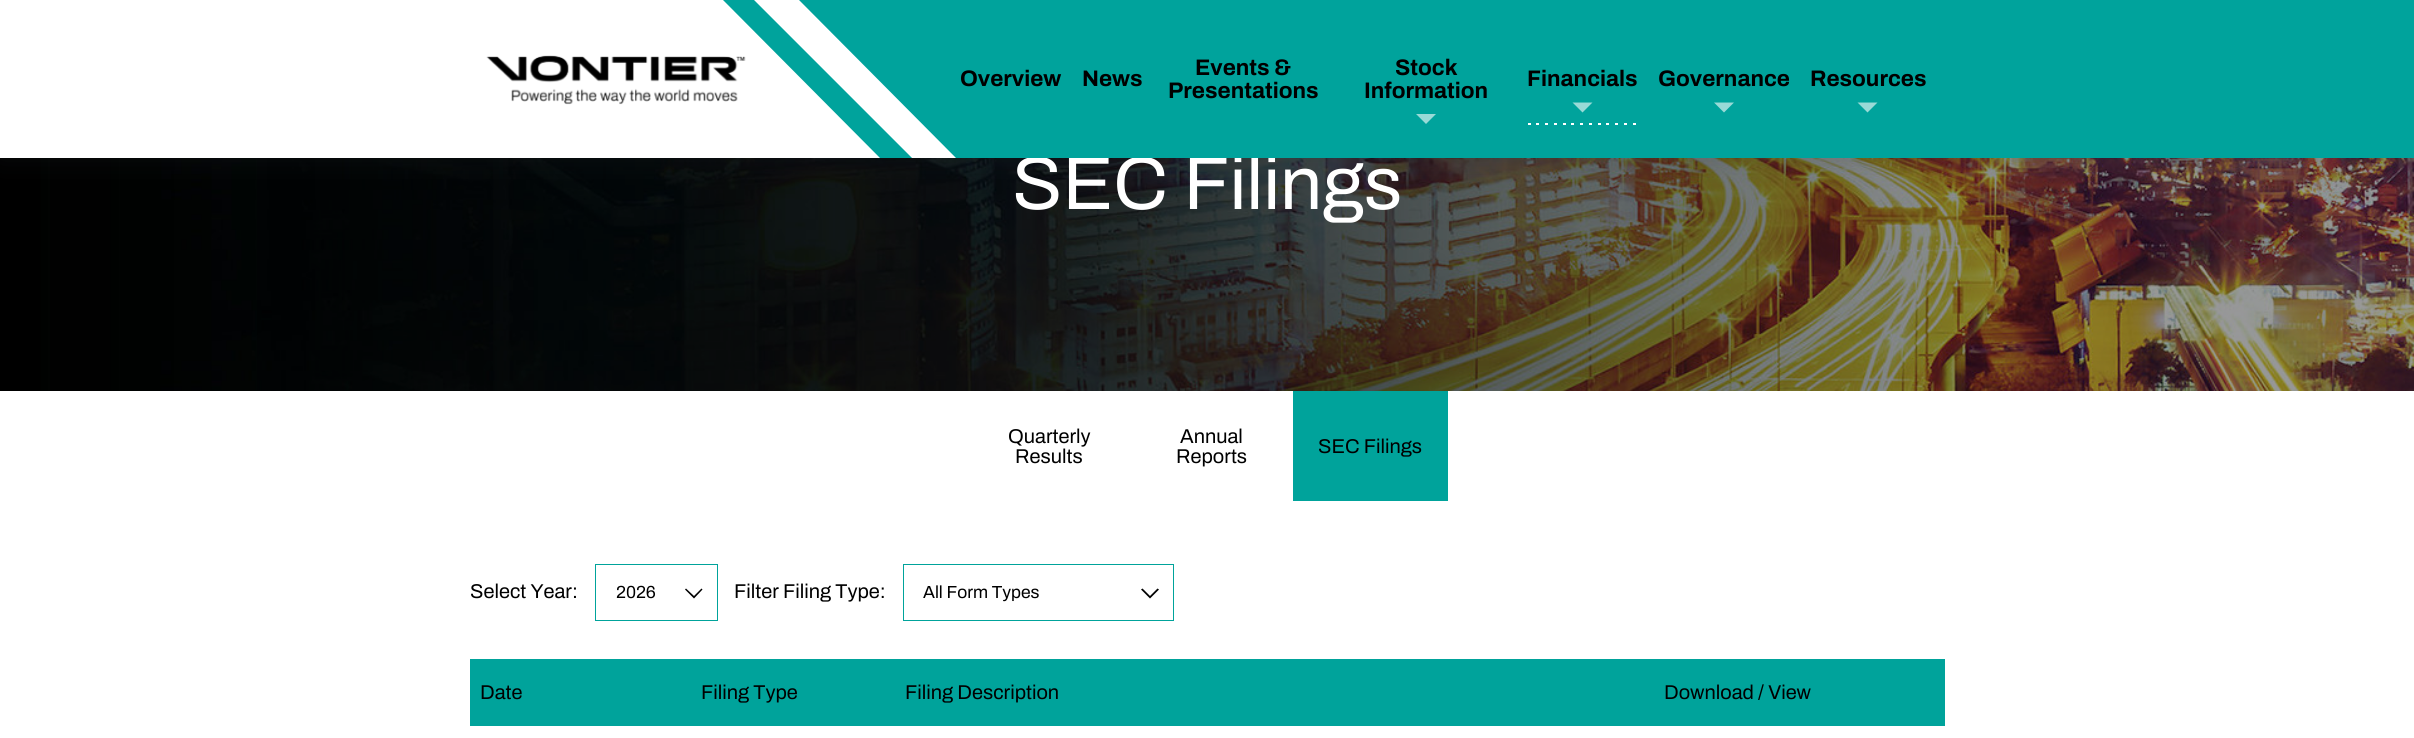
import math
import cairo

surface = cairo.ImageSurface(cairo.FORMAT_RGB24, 2414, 738)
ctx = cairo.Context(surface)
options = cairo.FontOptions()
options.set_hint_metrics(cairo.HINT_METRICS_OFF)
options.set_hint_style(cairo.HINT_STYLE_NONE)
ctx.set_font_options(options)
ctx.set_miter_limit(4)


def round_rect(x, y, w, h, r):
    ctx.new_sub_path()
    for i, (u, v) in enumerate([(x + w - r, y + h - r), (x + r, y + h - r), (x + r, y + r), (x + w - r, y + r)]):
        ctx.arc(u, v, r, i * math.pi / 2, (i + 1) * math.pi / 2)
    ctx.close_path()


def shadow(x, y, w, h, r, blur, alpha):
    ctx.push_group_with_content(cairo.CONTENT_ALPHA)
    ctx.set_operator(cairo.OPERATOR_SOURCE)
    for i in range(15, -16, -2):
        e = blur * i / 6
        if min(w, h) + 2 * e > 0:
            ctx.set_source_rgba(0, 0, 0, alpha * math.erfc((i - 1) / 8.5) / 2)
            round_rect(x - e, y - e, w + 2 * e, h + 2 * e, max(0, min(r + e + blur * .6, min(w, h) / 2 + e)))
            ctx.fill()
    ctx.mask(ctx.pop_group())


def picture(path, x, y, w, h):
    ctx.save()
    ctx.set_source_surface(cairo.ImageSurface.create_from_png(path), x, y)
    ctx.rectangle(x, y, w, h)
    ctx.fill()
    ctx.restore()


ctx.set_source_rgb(1, 1, 1)
ctx.paint()
picture("img1.png", 0, 158, 2414, 233)
ctx.set_source_rgba(0, 0, 0, 0.4)
ctx.rectangle(257, 158, 2157, 233)
ctx.fill()
ctx.set_source_rgb(0.157, 0.188, 0.2)
shadow(0, 3, 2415, 157, 0, 12.5, 0.2)
ctx.set_source_rgb(1, 1, 1)
ctx.rectangle(0, 0, 956, 158)
ctx.fill()
ctx.select_font_face("Archivo")
ctx.set_font_size(75)
ctx.move_to(1012, 209)
ctx.show_text("SEC Filings")
ctx.set_source_rgb(0, 0.639, 0.612)
ctx.new_path()
ctx.move_to(799, 0)
ctx.line_to(999, 0)
ctx.line_to(1156, 158)
ctx.line_to(956, 158)
ctx.close_path()
ctx.fill()
ctx.rectangle(999, 0, 1415, 158)
ctx.fill()
picture("img2.png", 486, 55, 260, 50)
ctx.new_path()
ctx.move_to(723, 0)
ctx.line_to(754, 0)
ctx.line_to(912, 158)
ctx.line_to(880, 158)
ctx.close_path()
ctx.fill()
ctx.select_font_face("Archivo", cairo.FONT_SLANT_NORMAL, cairo.FONT_WEIGHT_BOLD)
ctx.set_font_size(22.5)
ctx.set_source_rgb(0, 0, 0)
ctx.move_to(960, 86)
ctx.show_text("Overview")
ctx.move_to(1082, 86)
ctx.show_text("News")
ctx.move_to(1195, 75)
ctx.show_text("Events &")
ctx.move_to(1168, 98)
ctx.show_text("Presentations")
ctx.move_to(1395, 75)
ctx.show_text("Stock")
ctx.move_to(1364, 98)
ctx.show_text("Information")
ctx.set_source_rgb(0.6, 0.855, 0.843)
ctx.new_path()
ctx.move_to(1416, 114)
ctx.line_to(1436, 114)
ctx.line_to(1426, 124)
ctx.close_path()
ctx.fill()
ctx.set_source_rgb(1, 1, 1)
ctx.rectangle(1528, 123, 3, 2)
ctx.fill()
ctx.rectangle(1536, 123, 3, 2)
ctx.fill()
ctx.rectangle(1545, 123, 3, 2)
ctx.fill()
ctx.rectangle(1554, 123, 3, 2)
ctx.fill()
ctx.rectangle(1563, 123, 3, 2)
ctx.fill()
ctx.rectangle(1571, 123, 3, 2)
ctx.fill()
ctx.rectangle(1580, 123, 3, 2)
ctx.fill()
ctx.rectangle(1589, 123, 3, 2)
ctx.fill()
ctx.rectangle(1598, 123, 3, 2)
ctx.fill()
ctx.rectangle(1606, 123, 3, 2)
ctx.fill()
ctx.rectangle(1615, 123, 3, 2)
ctx.fill()
ctx.rectangle(1624, 123, 3, 2)
ctx.fill()
ctx.rectangle(1633, 123, 3, 2)
ctx.fill()
ctx.set_source_rgb(0, 0, 0)
ctx.move_to(1527, 86)
ctx.show_text("Financials")
ctx.set_source_rgb(0.6, 0.855, 0.843)
ctx.new_path()
ctx.move_to(1572.5, 102.5)
ctx.line_to(1592.5, 102.5)
ctx.line_to(1582.5, 112.5)
ctx.close_path()
ctx.fill()
ctx.set_source_rgb(0, 0, 0)
ctx.move_to(1658, 86)
ctx.show_text("Governance")
ctx.set_source_rgb(0.6, 0.855, 0.843)
ctx.new_path()
ctx.move_to(1714, 102.5)
ctx.line_to(1734, 102.5)
ctx.line_to(1724, 112.5)
ctx.close_path()
ctx.fill()
ctx.set_source_rgb(0, 0, 0)
ctx.move_to(1810, 86)
ctx.show_text("Resources")
ctx.set_source_rgb(0.6, 0.855, 0.843)
ctx.new_path()
ctx.move_to(1857.5, 102.5)
ctx.line_to(1877.5, 102.5)
ctx.line_to(1867.5, 112.5)
ctx.close_path()
ctx.fill()
ctx.select_font_face("Archivo")
ctx.set_font_size(20)
ctx.set_source_rgb(0, 0, 0)
ctx.move_to(1008, 443)
ctx.show_text("Quarterly")
ctx.move_to(1015, 463)
ctx.show_text("Results")
ctx.move_to(1180, 443)
ctx.show_text("Annual")
ctx.move_to(1176, 463)
ctx.show_text("Reports")
ctx.set_source_rgb(0, 0.639, 0.608)
ctx.rectangle(1293, 391, 155, 110)
ctx.fill()
ctx.set_source_rgb(0, 0, 0)
ctx.move_to(1318, 453)
ctx.show_text("SEC Filings")
ctx.move_to(470, 598)
ctx.show_text("Select Year:")
ctx.rectangle(595.5, 564.5, 122, 56)
ctx.set_source_rgb(0, 0.639, 0.608)
ctx.set_line_width(1)
ctx.stroke()
ctx.set_font_size(17.5)
ctx.set_source_rgb(0, 0, 0)
ctx.move_to(616, 598)
ctx.show_text("2026")
ctx.new_path()
ctx.move_to(702.5, 589.5)
ctx.line_to(701.5, 588.5)
ctx.line_to(694, 596)
ctx.line_to(686, 588.5)
ctx.line_to(685, 589.5)
ctx.line_to(694, 598.5)
ctx.close_path()
ctx.fill()
ctx.set_font_size(20)
ctx.move_to(734, 598)
ctx.show_text("Filter Filing Type:")
ctx.rectangle(903.5, 564.5, 270, 56)
ctx.set_source_rgb(0, 0.639, 0.608)
ctx.stroke()
ctx.set_font_size(17.5)
ctx.set_source_rgb(0, 0, 0)
ctx.move_to(923, 598)
ctx.show_text("All Form Types")
ctx.new_path()
ctx.move_to(1159, 589.5)
ctx.line_to(1157.5, 588.5)
ctx.line_to(1150, 596)
ctx.line_to(1142.5, 588.5)
ctx.line_to(1141, 589.5)
ctx.line_to(1150, 598.5)
ctx.close_path()
ctx.fill()
ctx.set_source_rgb(0, 0.639, 0.608)
ctx.rectangle(470, 659, 1475, 67)
ctx.fill()
ctx.set_font_size(20)
ctx.set_source_rgb(0, 0, 0)
ctx.move_to(480, 699)
ctx.show_text("Date")
ctx.move_to(701, 699)
ctx.show_text("Filing Type")
ctx.move_to(905, 699)
ctx.show_text("Filing Description")
ctx.move_to(1664, 699)
ctx.show_text("Download / View")
surface.write_to_png("page.png")
